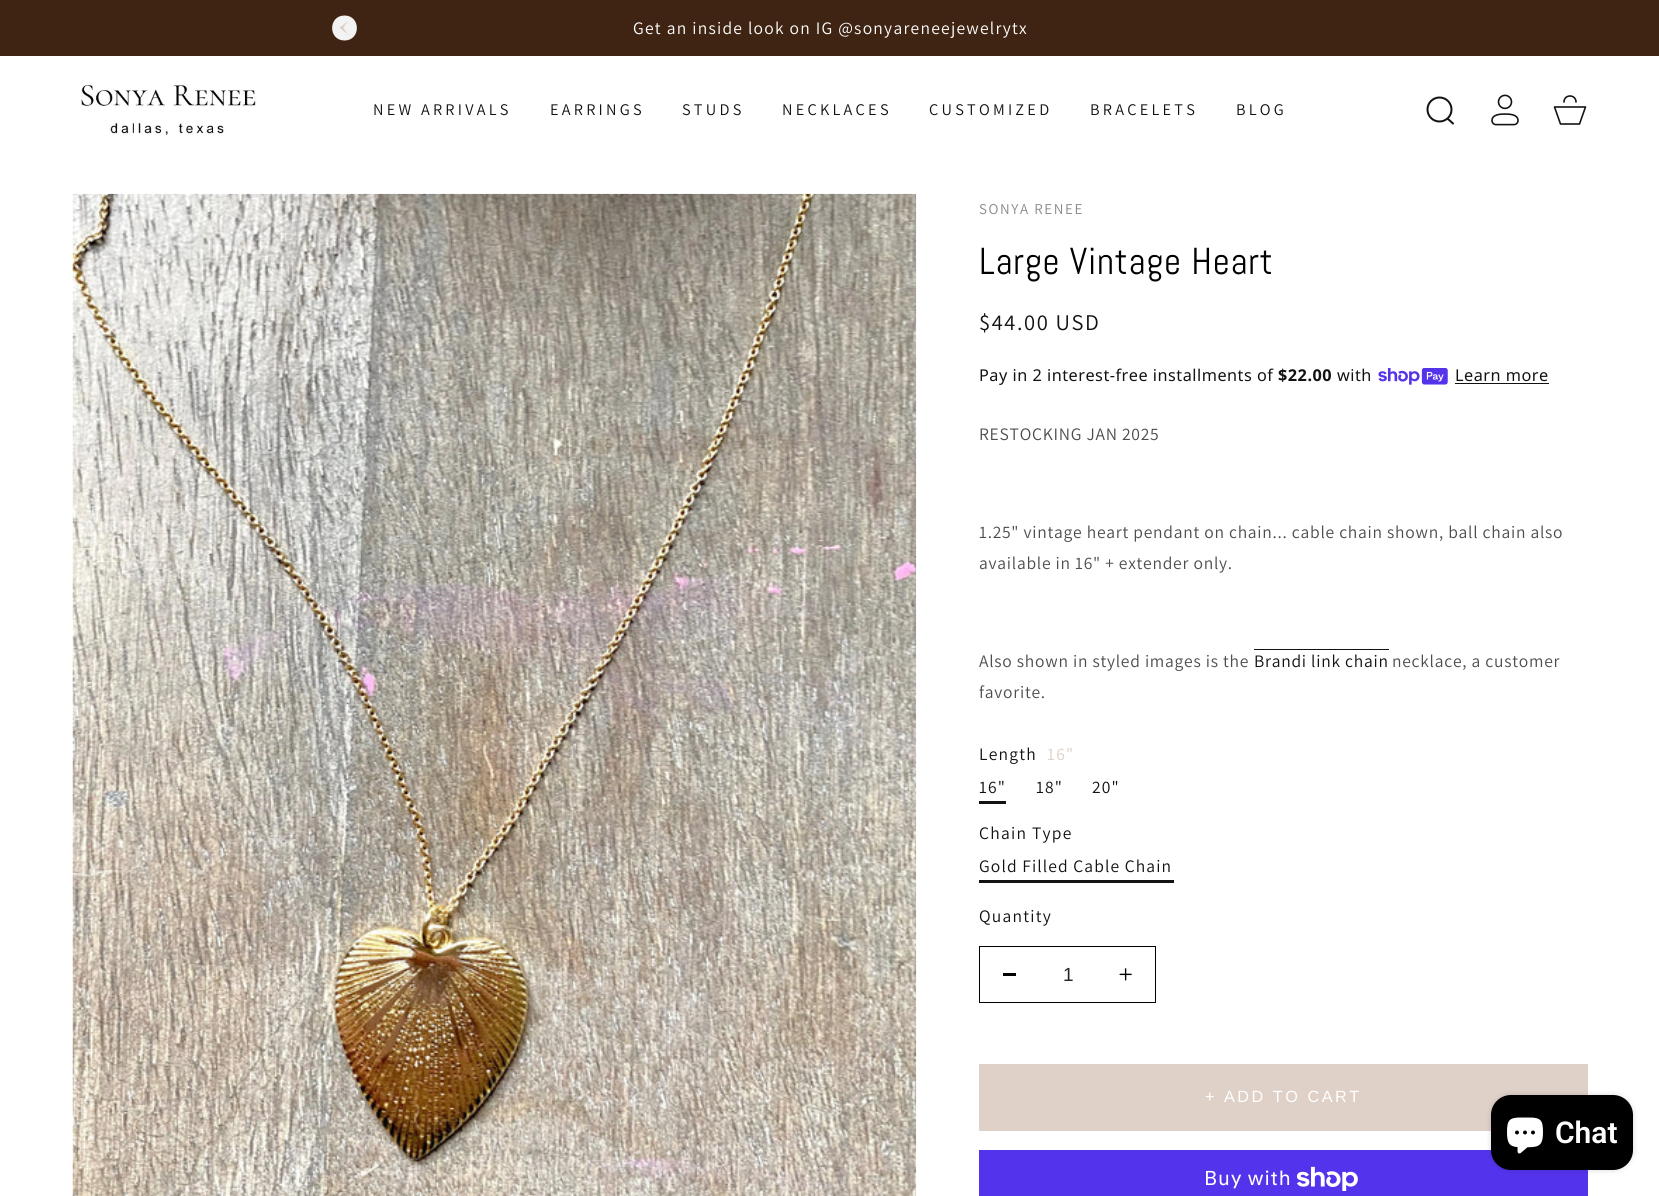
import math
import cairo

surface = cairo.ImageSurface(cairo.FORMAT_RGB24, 1659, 1196)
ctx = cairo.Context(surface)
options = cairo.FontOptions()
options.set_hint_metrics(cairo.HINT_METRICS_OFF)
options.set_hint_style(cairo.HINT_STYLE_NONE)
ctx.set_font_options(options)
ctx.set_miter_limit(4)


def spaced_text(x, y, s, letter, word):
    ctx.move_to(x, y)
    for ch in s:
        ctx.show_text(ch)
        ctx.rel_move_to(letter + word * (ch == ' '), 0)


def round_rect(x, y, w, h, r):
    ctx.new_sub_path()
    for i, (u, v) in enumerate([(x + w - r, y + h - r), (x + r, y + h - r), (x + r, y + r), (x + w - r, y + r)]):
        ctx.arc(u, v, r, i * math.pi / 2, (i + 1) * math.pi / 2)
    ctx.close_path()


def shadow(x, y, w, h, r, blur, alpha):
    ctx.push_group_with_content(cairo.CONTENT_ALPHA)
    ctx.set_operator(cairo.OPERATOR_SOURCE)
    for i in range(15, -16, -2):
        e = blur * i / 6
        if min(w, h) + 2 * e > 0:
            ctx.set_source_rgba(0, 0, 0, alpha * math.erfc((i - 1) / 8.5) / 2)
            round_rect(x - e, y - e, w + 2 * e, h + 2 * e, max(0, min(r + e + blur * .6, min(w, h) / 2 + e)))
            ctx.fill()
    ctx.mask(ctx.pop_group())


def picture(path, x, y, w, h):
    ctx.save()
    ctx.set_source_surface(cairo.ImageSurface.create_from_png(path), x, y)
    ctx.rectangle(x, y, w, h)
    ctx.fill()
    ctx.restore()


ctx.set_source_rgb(1, 1, 1)
ctx.paint()
ctx.set_source_rgb(0.247, 0.137, 0.075)
ctx.rectangle(0, 0, 1659, 56)
ctx.fill()
ctx.set_source_rgb(0.953, 0.953, 0.953)
ctx.new_path()
ctx.move_to(344.5, 40.5)
ctx.curve_to(328, 40.5, 328, 15.5, 344.5, 15.5)
ctx.curve_to(361, 15.5, 361, 40.5, 344.5, 40.5)
ctx.close_path()
ctx.fill()
picture("img1.png", 339, 21, 10, 14)
ctx.select_font_face("Assistant")
ctx.set_font_size(17.5)
ctx.set_source_rgb(1, 1, 1)
spaced_text(633, 34, "Get an inside look on IG @sonyareneejewelrytx", 1.25, 0)
picture("img2.png", 80, 84, 177, 51)
ctx.set_font_size(16.25)
ctx.set_source_rgb(0.071, 0.071, 0.071)
spaced_text(373, 115, "NEW ARRIVALS", 3.25, 0)
spaced_text(550, 115, "EARRINGS", 3.25, 0)
spaced_text(682, 115, "STUDS", 3.25, 0)
spaced_text(782, 115, "NECKLACES", 3.25, 0)
spaced_text(929, 115, "CUSTOMIZED", 3.25, 0)
spaced_text(1090, 115, "BRACELETS", 3.25, 0)
spaced_text(1236, 115, "BLOG", 3.25, 0)
ctx.new_path()
ctx.arc(1439.5, 109.5, 12, 0, 2 * math.pi)
ctx.stroke()
ctx.new_path()
ctx.move_to(1448, 119)
ctx.line_to(1453, 123.5)
ctx.set_line_cap(cairo.LINE_CAP_ROUND)
ctx.set_line_join(cairo.LINE_JOIN_ROUND)
ctx.stroke()
picture("img3.png", 1491, 94, 28, 32)
ctx.new_path()
ctx.move_to(1554.5, 107)
ctx.line_to(1585.5, 107)
ctx.line_to(1579.5, 124)
ctx.line_to(1560.5, 124)
ctx.close_path()
ctx.move_to(1576, 102)
ctx.curve_to(1576, 94, 1564, 94, 1564, 102)
ctx.set_line_width(1.6)
ctx.stroke()
picture("img4.png", 81, 135, 176, 1)
picture("img5.png", 72, 193, 845, 1003)
ctx.set_font_size(15)
ctx.set_source_rgb(0.537, 0.537, 0.537)
spaced_text(979, 214, "SONYA RENEE", 1.6, 0)
ctx.select_font_face("Abel")
ctx.set_font_size(37.5)
ctx.set_source_rgb(0, 0, 0)
spaced_text(979, 274, "Large Vintage Heart", 0.75, 0)
ctx.select_font_face("Assistant")
ctx.set_font_size(22.5)
ctx.set_source_rgb(0.071, 0.071, 0.071)
spaced_text(979, 330, "$44.00 USD", 1.6, 0)
ctx.select_font_face("Noto Sans")
ctx.set_font_size(16.25)
spaced_text(979, 381, "Pay in 2 interest-free installments of", 0.5, 0)
ctx.select_font_face("Noto Sans", cairo.FONT_SLANT_NORMAL, cairo.FONT_WEIGHT_BOLD)
spaced_text(1278, 381, "$22.00", 0.5, 0)
ctx.select_font_face("Noto Sans")
spaced_text(1337, 381, "with", 0.5, 0)
picture("img6.png", 1378, 368, 70, 17)
spaced_text(1455, 381, "Learn more", 0.5, 0)
ctx.rectangle(1455, 383, 94, 1)
ctx.fill()
ctx.select_font_face("Assistant")
ctx.set_font_size(17.5)
ctx.set_source_rgb(0.302, 0.302, 0.302)
spaced_text(979, 440, "RESTOCKING JAN 2025", 0.75, 0)
spaced_text(979, 538, "1.25\" vintage heart pendant on chain... cable chain shown, ball chain also", 0.75, 0)
spaced_text(979, 569, "available in 16\" + extender only.", 0.75, 0)
spaced_text(979, 667, "Also shown in styled images is the", 0.75, 0)
ctx.set_source_rgb(0.071, 0.071, 0.071)
spaced_text(1254, 667, "Brandi link chain", 0.75, 0)
ctx.rectangle(1254, 649, 135, 1)
ctx.fill()
ctx.set_source_rgb(0.302, 0.302, 0.302)
spaced_text(1392, 667, "necklace, a customer", 0.75, 0)
spaced_text(979, 698, "favorite.", 0.75, 0)
ctx.set_source_rgb(0.071, 0.071, 0.071)
spaced_text(979, 760, "Length", 1.25, 0)
ctx.set_source_rgb(0.875, 0.816, 0.784)
spaced_text(1047, 760, "16\"", 1.25, 0)
ctx.set_source_rgb(0.071, 0.071, 0.071)
spaced_text(979, 793, "16\"", 1.1, 0)
ctx.rectangle(979, 801, 27, 3)
ctx.fill()
spaced_text(1036, 793, "18\"", 1.1, 0)
spaced_text(1092, 793, "20\"", 1.1, 0)
spaced_text(979, 839, "Chain Type", 1.25, 0)
spaced_text(979, 872, "Gold Filled Cable Chain", 1.1, 0)
ctx.rectangle(979, 880, 195, 3)
ctx.fill()
spaced_text(979, 922, "Quantity", 1.25, 0)
ctx.rectangle(979.5, 946.5, 176, 56)
ctx.set_source_rgb(0, 0, 0)
ctx.set_line_width(1)
ctx.set_line_cap(cairo.LINE_CAP_BUTT)
ctx.set_line_join(cairo.LINE_JOIN_MITER)
ctx.stroke()
ctx.rectangle(1003, 973, 13, 3)
ctx.fill()
ctx.select_font_face("Liberation Sans")
ctx.set_font_size(19)
ctx.set_source_rgb(0.149, 0.149, 0.149)
ctx.move_to(1063, 981)
ctx.show_text("1")
picture("img7.png", 1119, 968, 13, 13)
ctx.set_source_rgb(0.875, 0.816, 0.784)
ctx.rectangle(979, 1064, 609, 67)
ctx.fill()
ctx.set_font_size(16.25)
ctx.set_source_rgb(1, 1, 1)
spaced_text(1205, 1102, "+ ADD TO CART", 2.5, 0)
ctx.set_source_rgb(0.329, 0.2, 0.922)
ctx.rectangle(979, 1150, 609, 46)
ctx.fill()
ctx.select_font_face("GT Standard")
ctx.set_font_size(20)
ctx.set_source_rgb(1, 1, 1)
spaced_text(1204, 1185, "Buy with", 0.75, 0)
picture("img8.png", 1296, 1166, 62, 25)
ctx.set_source_rgb(0, 0, 0)
shadow(1491, 1095, 142, 75, 20, 3, 0.15)
ctx.set_source_rgb(0, 0, 0)
round_rect(1491, 1095, 142, 75, 20)
ctx.fill()
picture("img9.png", 1507, 1117, 36, 37)
ctx.select_font_face("Roboto SemiBold")
ctx.set_font_size(30)
ctx.set_source_rgb(1, 1, 1)
ctx.move_to(1555, 1143)
ctx.show_text("Chat")
surface.write_to_png("page.png")
